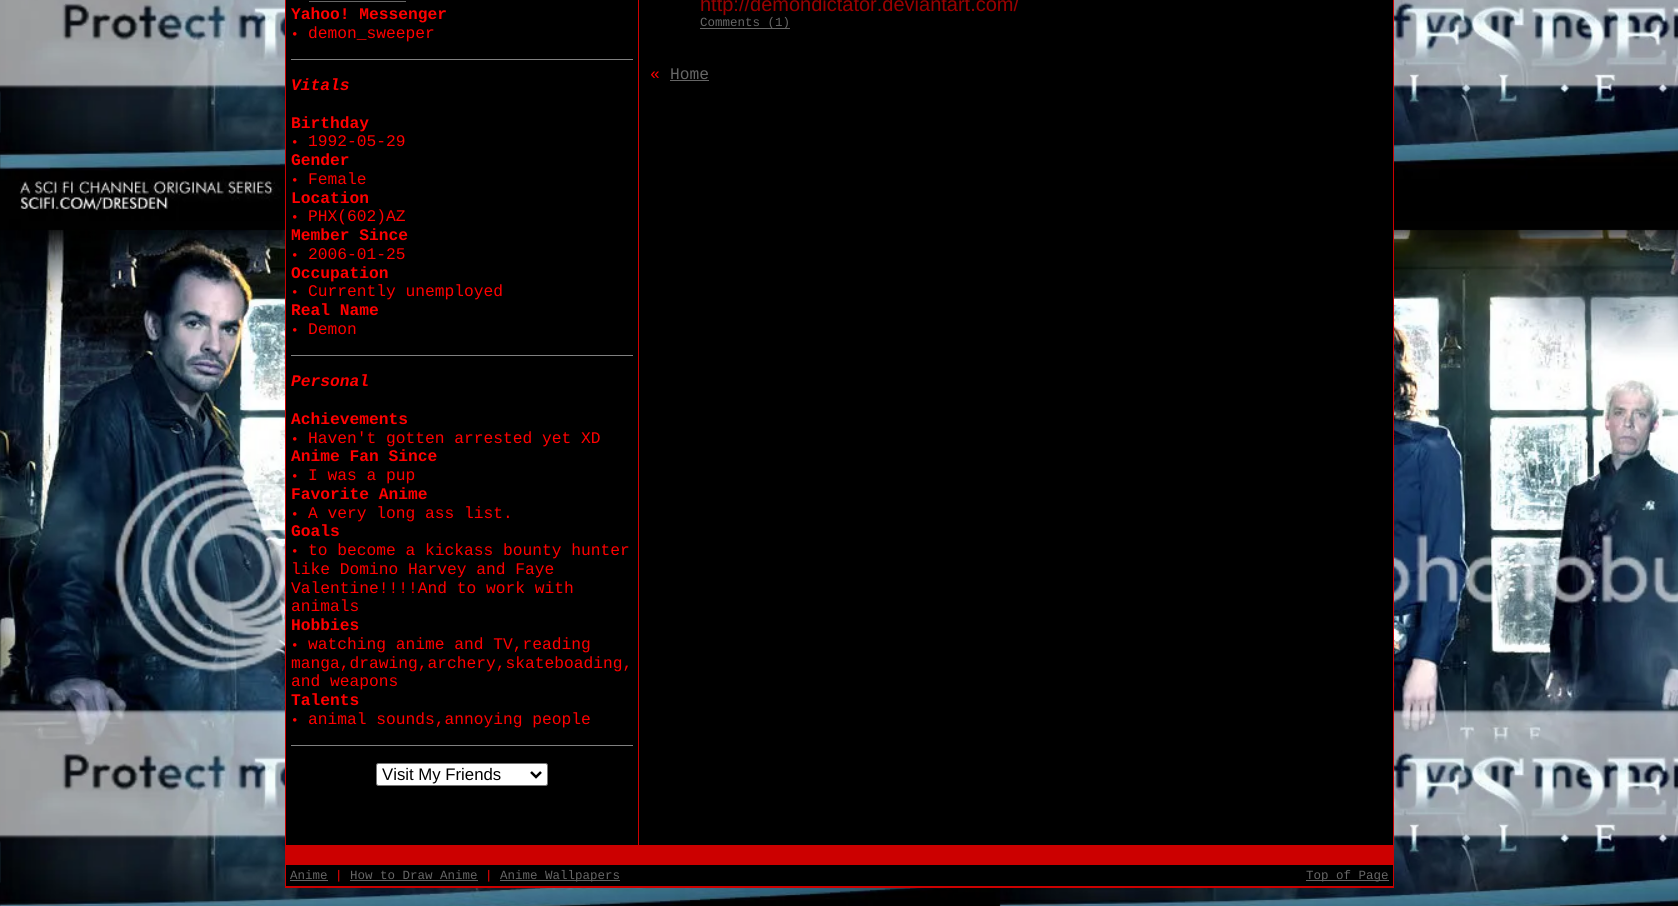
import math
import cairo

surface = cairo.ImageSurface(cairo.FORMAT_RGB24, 1678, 906)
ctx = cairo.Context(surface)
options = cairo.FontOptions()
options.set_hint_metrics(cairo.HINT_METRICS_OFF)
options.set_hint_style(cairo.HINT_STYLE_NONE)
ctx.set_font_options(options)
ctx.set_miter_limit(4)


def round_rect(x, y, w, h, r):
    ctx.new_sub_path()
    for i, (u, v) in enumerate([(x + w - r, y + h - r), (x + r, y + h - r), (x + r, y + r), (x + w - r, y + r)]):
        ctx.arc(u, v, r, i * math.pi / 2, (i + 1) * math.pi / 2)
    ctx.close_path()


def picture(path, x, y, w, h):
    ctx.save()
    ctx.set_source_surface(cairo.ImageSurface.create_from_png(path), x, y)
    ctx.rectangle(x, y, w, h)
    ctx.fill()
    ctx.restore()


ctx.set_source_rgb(1, 1, 1)
ctx.paint()
picture("img1.png", 0, 0, 1678, 906)
ctx.set_source_rgb(0.8, 0, 0)
ctx.rectangle(285, 0, 1109, 888)
ctx.fill()
ctx.set_source_rgb(0, 0, 0)
ctx.rectangle(286, 0, 352, 845)
ctx.fill()
ctx.set_source_rgb(0.4, 0.4, 0.4)
ctx.rectangle(309, 1, 97, 1)
ctx.fill()
ctx.select_font_face("Liberation Mono", cairo.FONT_SLANT_NORMAL, cairo.FONT_WEIGHT_BOLD)
ctx.set_font_size(16.25)
ctx.set_source_rgb(1, 0, 0)
ctx.move_to(291, 19)
ctx.show_text("Yahoo! Messenger")
ctx.set_font_size(12.5)
ctx.move_to(291, 38)
ctx.show_text("•")
ctx.select_font_face("Liberation Mono")
ctx.set_font_size(16.25)
ctx.move_to(308, 38)
ctx.show_text("demon_sweeper")
ctx.set_source_rgb(0.502, 0.502, 0.502)
ctx.rectangle(291, 59, 342, 1)
ctx.fill()
ctx.select_font_face("Liberation Mono", cairo.FONT_SLANT_ITALIC, cairo.FONT_WEIGHT_BOLD)
ctx.set_source_rgb(1, 0, 0)
ctx.move_to(291, 90)
ctx.show_text("Vitals")
ctx.select_font_face("Liberation Mono", cairo.FONT_SLANT_NORMAL, cairo.FONT_WEIGHT_BOLD)
ctx.move_to(291, 128)
ctx.show_text("Birthday")
ctx.set_font_size(12.5)
ctx.move_to(291, 146)
ctx.show_text("•")
ctx.select_font_face("Liberation Mono")
ctx.set_font_size(16.25)
ctx.move_to(308, 146)
ctx.show_text("1992-05-29")
ctx.select_font_face("Liberation Mono", cairo.FONT_SLANT_NORMAL, cairo.FONT_WEIGHT_BOLD)
ctx.move_to(291, 165)
ctx.show_text("Gender")
ctx.set_font_size(12.5)
ctx.move_to(291, 184)
ctx.show_text("•")
ctx.select_font_face("Liberation Mono")
ctx.set_font_size(16.25)
ctx.move_to(308, 184)
ctx.show_text("Female")
ctx.select_font_face("Liberation Mono", cairo.FONT_SLANT_NORMAL, cairo.FONT_WEIGHT_BOLD)
ctx.move_to(291, 203)
ctx.show_text("Location")
ctx.set_font_size(12.5)
ctx.move_to(291, 221)
ctx.show_text("•")
ctx.select_font_face("Liberation Mono")
ctx.set_font_size(16.25)
ctx.move_to(308, 221)
ctx.show_text("PHX(602)AZ")
ctx.select_font_face("Liberation Mono", cairo.FONT_SLANT_NORMAL, cairo.FONT_WEIGHT_BOLD)
ctx.move_to(291, 240)
ctx.show_text("Member Since")
ctx.set_font_size(12.5)
ctx.move_to(291, 259)
ctx.show_text("•")
ctx.select_font_face("Liberation Mono")
ctx.set_font_size(16.25)
ctx.move_to(308, 259)
ctx.show_text("2006-01-25")
ctx.select_font_face("Liberation Mono", cairo.FONT_SLANT_NORMAL, cairo.FONT_WEIGHT_BOLD)
ctx.move_to(291, 278)
ctx.show_text("Occupation")
ctx.set_font_size(12.5)
ctx.move_to(291, 296)
ctx.show_text("•")
ctx.select_font_face("Liberation Mono")
ctx.set_font_size(16.25)
ctx.move_to(308, 296)
ctx.show_text("Currently unemployed")
ctx.select_font_face("Liberation Mono", cairo.FONT_SLANT_NORMAL, cairo.FONT_WEIGHT_BOLD)
ctx.move_to(291, 315)
ctx.show_text("Real Name")
ctx.set_font_size(12.5)
ctx.move_to(291, 334)
ctx.show_text("•")
ctx.select_font_face("Liberation Mono")
ctx.set_font_size(16.25)
ctx.move_to(308, 334)
ctx.show_text("Demon")
ctx.set_source_rgb(0.502, 0.502, 0.502)
ctx.rectangle(291, 355, 342, 1)
ctx.fill()
ctx.select_font_face("Liberation Mono", cairo.FONT_SLANT_ITALIC, cairo.FONT_WEIGHT_BOLD)
ctx.set_source_rgb(1, 0, 0)
ctx.move_to(291, 386)
ctx.show_text("Personal")
ctx.select_font_face("Liberation Mono", cairo.FONT_SLANT_NORMAL, cairo.FONT_WEIGHT_BOLD)
ctx.move_to(291, 424)
ctx.show_text("Achievements")
ctx.set_font_size(12.5)
ctx.move_to(291, 443)
ctx.show_text("•")
ctx.select_font_face("Liberation Mono")
ctx.set_font_size(16.25)
ctx.move_to(308, 443)
ctx.show_text("Haven't gotten arrested yet XD")
ctx.select_font_face("Liberation Mono", cairo.FONT_SLANT_NORMAL, cairo.FONT_WEIGHT_BOLD)
ctx.move_to(291, 461)
ctx.show_text("Anime Fan Since")
ctx.set_font_size(12.5)
ctx.move_to(291, 480)
ctx.show_text("•")
ctx.select_font_face("Liberation Mono")
ctx.set_font_size(16.25)
ctx.move_to(308, 480)
ctx.show_text("I was a pup")
ctx.select_font_face("Liberation Mono", cairo.FONT_SLANT_NORMAL, cairo.FONT_WEIGHT_BOLD)
ctx.move_to(291, 499)
ctx.show_text("Favorite Anime")
ctx.set_font_size(12.5)
ctx.move_to(291, 518)
ctx.show_text("•")
ctx.select_font_face("Liberation Mono")
ctx.set_font_size(16.25)
ctx.move_to(308, 518)
ctx.show_text("A very long ass list.")
ctx.select_font_face("Liberation Mono", cairo.FONT_SLANT_NORMAL, cairo.FONT_WEIGHT_BOLD)
ctx.move_to(291, 536)
ctx.show_text("Goals")
ctx.set_font_size(12.5)
ctx.move_to(291, 555)
ctx.show_text("•")
ctx.select_font_face("Liberation Mono")
ctx.set_font_size(16.25)
ctx.move_to(308, 555)
ctx.show_text("to become a kickass bounty hunter")
ctx.move_to(291, 574)
ctx.show_text("like Domino Harvey and Faye")
ctx.move_to(291, 593)
ctx.show_text("Valentine!!!!And to work with")
ctx.move_to(291, 611)
ctx.show_text("animals")
ctx.select_font_face("Liberation Mono", cairo.FONT_SLANT_NORMAL, cairo.FONT_WEIGHT_BOLD)
ctx.move_to(291, 630)
ctx.show_text("Hobbies")
ctx.set_font_size(12.5)
ctx.move_to(291, 649)
ctx.show_text("•")
ctx.select_font_face("Liberation Mono")
ctx.set_font_size(16.25)
ctx.move_to(308, 649)
ctx.show_text("watching anime and TV,reading")
ctx.move_to(291, 668)
ctx.show_text("manga,drawing,archery,skateboading,")
ctx.move_to(291, 686)
ctx.show_text("and weapons")
ctx.select_font_face("Liberation Mono", cairo.FONT_SLANT_NORMAL, cairo.FONT_WEIGHT_BOLD)
ctx.move_to(291, 705)
ctx.show_text("Talents")
ctx.set_font_size(12.5)
ctx.move_to(291, 724)
ctx.show_text("•")
ctx.select_font_face("Liberation Mono")
ctx.set_font_size(16.25)
ctx.move_to(308, 724)
ctx.show_text("animal sounds,annoying people")
ctx.set_source_rgb(0.502, 0.502, 0.502)
ctx.rectangle(291, 745, 342, 1)
ctx.fill()
ctx.set_source_rgb(1, 1, 1)
round_rect(376.5, 763.5, 171, 22, 2)
ctx.fill_preserve()
ctx.set_source_rgb(0.463, 0.463, 0.463)
ctx.set_line_width(1)
ctx.stroke()
ctx.new_path()
ctx.move_to(531, 772)
ctx.line_to(536, 777)
ctx.line_to(541, 772)
ctx.set_source_rgb(0, 0, 0)
ctx.set_line_width(2.5)
ctx.stroke()
ctx.select_font_face("Liberation Sans")
ctx.set_font_size(16.75)
ctx.move_to(382, 780)
ctx.show_text("Visit My Friends")
ctx.rectangle(639, 0, 754, 845)
ctx.fill()
ctx.set_font_size(20)
ctx.set_source_rgb(0.6, 0, 0)
ctx.move_to(700, 11)
ctx.show_text("http://demondictator.deviantart.com/")
ctx.set_source_rgb(0.4, 0.4, 0.4)
ctx.rectangle(700, 28, 90, 1)
ctx.fill()
ctx.select_font_face("Liberation Mono")
ctx.set_font_size(12.5)
ctx.move_to(700, 26)
ctx.show_text("Comments (1)")
ctx.set_font_size(16.25)
ctx.set_source_rgb(1, 0, 0)
ctx.move_to(650, 79)
ctx.show_text("«")
ctx.set_source_rgb(0.4, 0.4, 0.4)
ctx.move_to(670, 79)
ctx.show_text("Home")
ctx.rectangle(670, 80, 39, 1)
ctx.fill()
ctx.set_source_rgb(0, 0, 0)
ctx.rectangle(286, 865, 1107, 21)
ctx.fill()
ctx.set_font_size(12.5)
ctx.set_source_rgb(0.4, 0.4, 0.4)
ctx.move_to(290, 879)
ctx.show_text("Anime")
ctx.rectangle(290, 880, 38, 1)
ctx.fill()
ctx.set_source_rgb(1, 0, 0)
ctx.move_to(335, 879)
ctx.show_text("|")
ctx.set_source_rgb(0.4, 0.4, 0.4)
ctx.move_to(350, 879)
ctx.show_text("How to Draw Anime")
ctx.rectangle(350, 880, 128, 1)
ctx.fill()
ctx.set_source_rgb(1, 0, 0)
ctx.move_to(485, 879)
ctx.show_text("|")
ctx.set_source_rgb(0.4, 0.4, 0.4)
ctx.rectangle(500, 880, 120, 1)
ctx.fill()
ctx.move_to(500, 879)
ctx.show_text("Anime Wallpapers")
ctx.rectangle(1306, 880, 83, 1)
ctx.fill()
ctx.move_to(1306, 879)
ctx.show_text("Top of Page")
surface.write_to_png("page.png")
